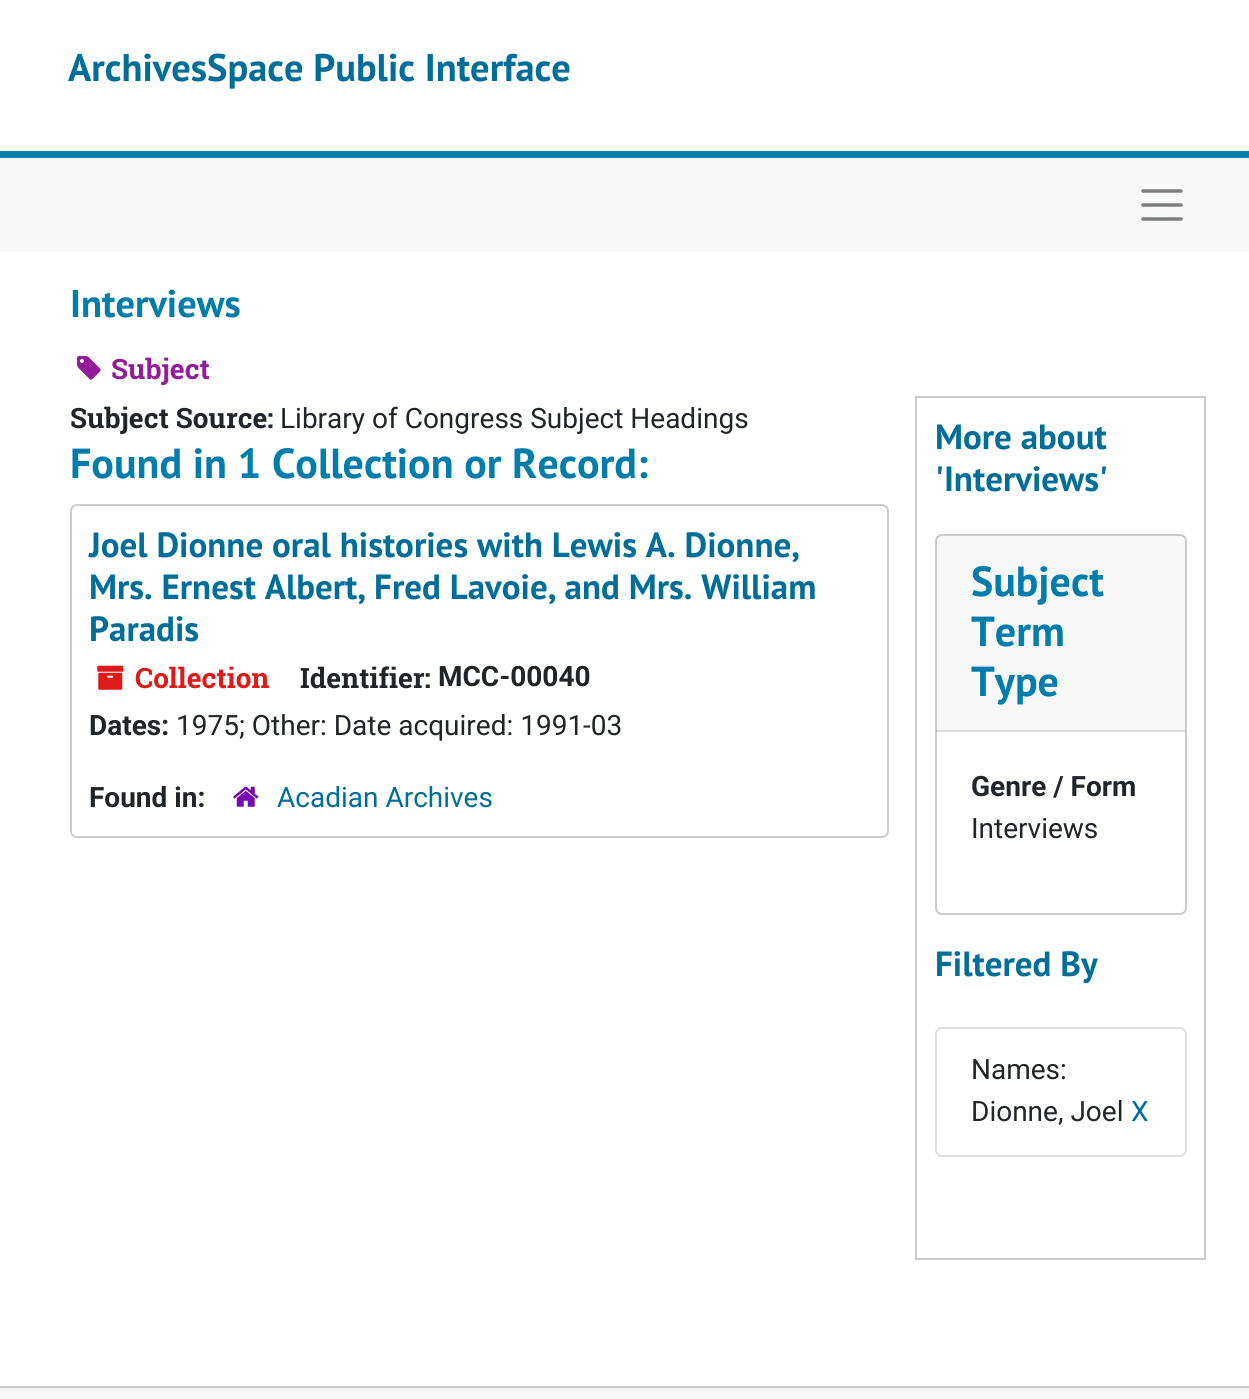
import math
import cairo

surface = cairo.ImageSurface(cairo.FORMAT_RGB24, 1249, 1399)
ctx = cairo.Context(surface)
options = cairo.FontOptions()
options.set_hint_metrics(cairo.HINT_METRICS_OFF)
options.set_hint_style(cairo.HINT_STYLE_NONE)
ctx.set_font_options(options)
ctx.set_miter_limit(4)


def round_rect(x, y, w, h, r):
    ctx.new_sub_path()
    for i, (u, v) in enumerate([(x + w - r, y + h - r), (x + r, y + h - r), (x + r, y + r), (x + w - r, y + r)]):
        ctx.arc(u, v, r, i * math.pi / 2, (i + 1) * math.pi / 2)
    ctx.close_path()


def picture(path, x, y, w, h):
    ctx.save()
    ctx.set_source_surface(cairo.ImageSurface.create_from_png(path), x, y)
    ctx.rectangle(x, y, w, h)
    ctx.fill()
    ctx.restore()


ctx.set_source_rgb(1, 1, 1)
ctx.paint()
ctx.set_source_rgb(0, 0.486, 0.678)
ctx.rectangle(0, 151, 1249, 7)
ctx.fill()
ctx.select_font_face("PT Sans", cairo.FONT_SLANT_NORMAL, cairo.FONT_WEIGHT_BOLD)
ctx.set_font_size(38.5)
ctx.set_source_rgb(0, 0.431, 0.6)
ctx.move_to(68, 81)
ctx.show_text("ArchivesSpace Public Interface")
ctx.set_source_rgb(0.973, 0.976, 0.98)
ctx.rectangle(0, 158, 1249, 94)
ctx.fill()
ctx.new_path()
ctx.move_to(1143, 191)
ctx.line_to(1181, 191)
ctx.move_to(1143, 205)
ctx.line_to(1181, 205)
ctx.move_to(1143, 219)
ctx.line_to(1181, 219)
ctx.set_source_rgb(0.486, 0.49, 0.49)
ctx.set_line_width(3.5)
ctx.set_line_cap(cairo.LINE_CAP_ROUND)
ctx.stroke()
ctx.set_source_rgb(0, 0.486, 0.678)
ctx.move_to(70, 317)
ctx.show_text("Interviews")
picture("img1.png", 77, 356, 24, 24)
ctx.select_font_face("Roboto Slab", cairo.FONT_SLANT_NORMAL, cairo.FONT_WEIGHT_BOLD)
ctx.set_font_size(28)
ctx.set_source_rgb(0.58, 0.11, 0.604)
ctx.move_to(111, 379)
ctx.show_text("Subject")
ctx.set_source_rgb(0.129, 0.145, 0.161)
ctx.move_to(70, 428)
ctx.show_text("Subject Source:")
ctx.select_font_face("Roboto")
ctx.move_to(280, 428)
ctx.show_text("Library of Congress Subject Headings")
ctx.select_font_face("PT Sans", cairo.FONT_SLANT_NORMAL, cairo.FONT_WEIGHT_BOLD)
ctx.set_font_size(42)
ctx.set_source_rgb(0, 0.486, 0.678)
ctx.move_to(70, 478)
ctx.show_text("Found in 1 Collection or Record:")
round_rect(71, 505, 817, 332, 6)
ctx.set_source_rgb(0.8, 0.8, 0.8)
ctx.set_line_width(2)
ctx.set_line_cap(cairo.LINE_CAP_BUTT)
ctx.stroke()
ctx.set_font_size(35)
ctx.set_source_rgb(0, 0.431, 0.6)
ctx.move_to(89, 557)
ctx.show_text("Joel Dionne oral histories with Lewis A. Dionne,")
ctx.move_to(89, 599)
ctx.show_text("Mrs. Ernest Albert, Fred Lavoie, and Mrs. William")
ctx.move_to(89, 641)
ctx.show_text("Paradis")
picture("img2.png", 97, 665, 27, 25)
ctx.select_font_face("Roboto Slab", cairo.FONT_SLANT_NORMAL, cairo.FONT_WEIGHT_BOLD)
ctx.set_font_size(28)
ctx.set_source_rgb(0.878, 0.098, 0.098)
ctx.move_to(135, 688)
ctx.show_text("Collection")
ctx.set_source_rgb(0.129, 0.145, 0.161)
ctx.move_to(300, 688)
ctx.show_text("Identifier:")
ctx.select_font_face("Roboto", cairo.FONT_SLANT_NORMAL, cairo.FONT_WEIGHT_BOLD)
ctx.move_to(438, 686)
ctx.show_text("MCC-00040")
ctx.move_to(89, 735)
ctx.show_text("Dates:")
ctx.select_font_face("Roboto")
ctx.move_to(176, 735)
ctx.show_text("1975; Other: Date acquired: 1991-03")
ctx.select_font_face("Roboto", cairo.FONT_SLANT_NORMAL, cairo.FONT_WEIGHT_BOLD)
ctx.move_to(89, 807)
ctx.show_text("Found in:")
picture("img3.png", 233, 786, 26, 21)
ctx.select_font_face("Roboto")
ctx.set_source_rgb(0, 0.431, 0.6)
ctx.move_to(277, 807)
ctx.show_text("Acadian Archives")
ctx.rectangle(916, 397, 289, 862)
ctx.set_source_rgb(0.8, 0.8, 0.8)
ctx.stroke()
ctx.select_font_face("PT Sans", cairo.FONT_SLANT_NORMAL, cairo.FONT_WEIGHT_BOLD)
ctx.set_font_size(35)
ctx.set_source_rgb(0, 0.431, 0.6)
ctx.move_to(935, 449)
ctx.show_text("More about")
ctx.move_to(935, 491)
ctx.show_text("'Interviews'")
round_rect(936, 535, 250, 379, 6)
ctx.set_source_rgb(0.8, 0.8, 0.8)
ctx.stroke()
ctx.set_source_rgba(0, 0, 0, 0.03)
ctx.rectangle(936, 536, 249, 196)
ctx.fill()
ctx.set_source_rgba(0, 0, 0, 0.12)
ctx.rectangle(936, 730, 249, 2)
ctx.fill()
ctx.set_font_size(42)
ctx.set_source_rgb(0, 0.486, 0.678)
ctx.move_to(971, 596)
ctx.show_text("Subject")
ctx.move_to(971, 646)
ctx.show_text("Term")
ctx.move_to(971, 696)
ctx.show_text("Type")
ctx.select_font_face("Roboto", cairo.FONT_SLANT_NORMAL, cairo.FONT_WEIGHT_BOLD)
ctx.set_font_size(28)
ctx.set_source_rgb(0.129, 0.145, 0.161)
ctx.move_to(971, 796)
ctx.show_text("Genre / Form")
ctx.select_font_face("Roboto")
ctx.move_to(971, 838)
ctx.show_text("Interviews")
ctx.select_font_face("PT Sans", cairo.FONT_SLANT_NORMAL, cairo.FONT_WEIGHT_BOLD)
ctx.set_font_size(35)
ctx.set_source_rgb(0, 0.431, 0.6)
ctx.move_to(935, 976)
ctx.show_text("Filtered By")
round_rect(936, 1028, 250, 128, 6)
ctx.set_source_rgb(0.875, 0.875, 0.875)
ctx.stroke()
ctx.select_font_face("Roboto")
ctx.set_font_size(28)
ctx.set_source_rgb(0.129, 0.145, 0.161)
ctx.move_to(971, 1079)
ctx.show_text("Names:")
ctx.move_to(971, 1121)
ctx.show_text("Dionne, Joel")
ctx.set_source_rgb(0, 0.431, 0.6)
ctx.move_to(1131, 1121)
ctx.show_text("X")
ctx.set_source_rgb(0.961, 0.961, 0.961)
ctx.rectangle(0, 1388, 1249, 11)
ctx.fill()
ctx.set_source_rgb(0.8, 0.8, 0.8)
ctx.rectangle(0, 1386, 1249, 2)
ctx.fill()
surface.write_to_png("page.png")
